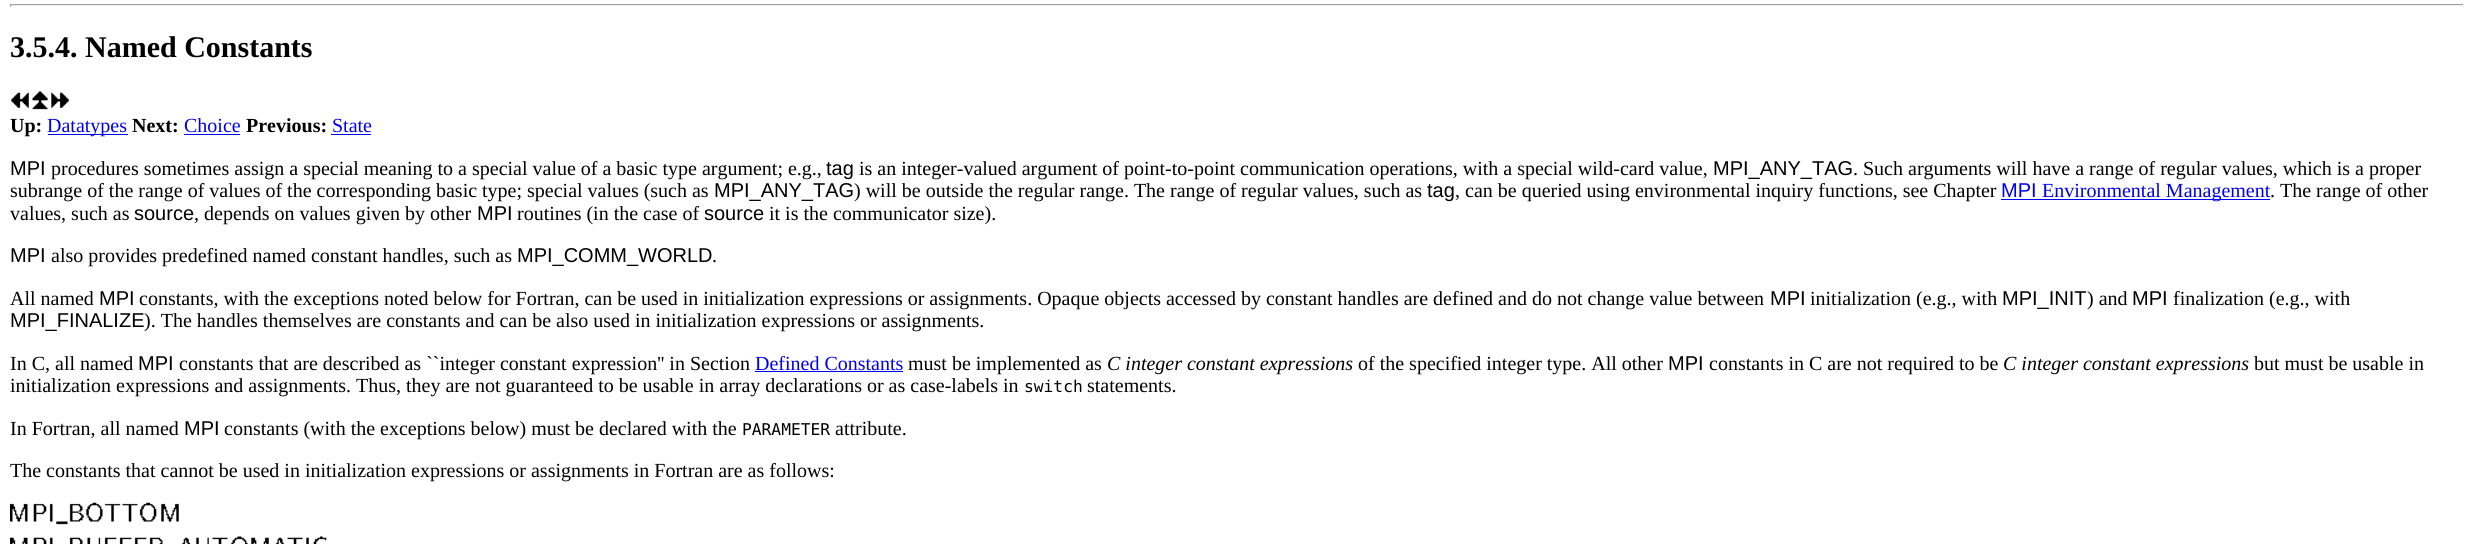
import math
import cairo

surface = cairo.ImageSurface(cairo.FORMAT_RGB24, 2473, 544)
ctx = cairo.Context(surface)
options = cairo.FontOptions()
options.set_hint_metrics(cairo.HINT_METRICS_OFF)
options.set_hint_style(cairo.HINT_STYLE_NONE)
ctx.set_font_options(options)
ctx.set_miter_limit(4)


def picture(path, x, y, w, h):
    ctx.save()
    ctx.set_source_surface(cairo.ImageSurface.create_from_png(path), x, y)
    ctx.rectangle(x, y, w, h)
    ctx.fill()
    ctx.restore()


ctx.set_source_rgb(1, 1, 1)
ctx.paint()
ctx.set_source_rgb(0.624, 0.624, 0.624)
ctx.rectangle(10, 4, 2454, 1)
ctx.fill()
ctx.set_source_rgb(0.933, 0.933, 0.933)
ctx.rectangle(2463, 4, 1, 3)
ctx.fill()
ctx.rectangle(10, 5, 2454, 1)
ctx.fill()
ctx.set_source_rgb(0.624, 0.624, 0.624)
ctx.rectangle(10, 4, 1, 3)
ctx.fill()
ctx.select_font_face("Liberation Serif", cairo.FONT_SLANT_NORMAL, cairo.FONT_WEIGHT_BOLD)
ctx.set_font_size(30)
ctx.set_source_rgb(0, 0, 0)
ctx.move_to(10, 57)
ctx.show_text("3.5.4. Named Constants")
picture("img1.png", 11, 92, 18, 16)
picture("img2.png", 32, 91, 16, 19)
picture("img3.png", 51, 92, 18, 16)
ctx.set_font_size(20)
ctx.move_to(10, 132)
ctx.show_text("Up:")
ctx.set_source_rgb(0, 0, 0.933)
ctx.rectangle(48, 134, 80, 1)
ctx.fill()
ctx.select_font_face("Liberation Serif")
ctx.move_to(47, 132)
ctx.show_text("Datatypes")
ctx.select_font_face("Liberation Serif", cairo.FONT_SLANT_NORMAL, cairo.FONT_WEIGHT_BOLD)
ctx.set_source_rgb(0, 0, 0)
ctx.move_to(132, 132)
ctx.show_text("Next:")
ctx.select_font_face("Liberation Serif")
ctx.set_source_rgb(0, 0, 0.933)
ctx.move_to(184, 132)
ctx.show_text("Choice")
ctx.rectangle(184, 134, 56, 1)
ctx.fill()
ctx.select_font_face("Liberation Serif", cairo.FONT_SLANT_NORMAL, cairo.FONT_WEIGHT_BOLD)
ctx.set_source_rgb(0, 0, 0)
ctx.move_to(246, 132)
ctx.show_text("Previous:")
ctx.select_font_face("Liberation Serif")
ctx.set_source_rgb(0, 0, 0.933)
ctx.move_to(332, 132)
ctx.show_text("State")
ctx.rectangle(331, 134, 40, 1)
ctx.fill()
ctx.select_font_face("Liberation Sans")
ctx.set_source_rgb(0, 0, 0)
ctx.move_to(10, 175)
ctx.show_text("MPI")
ctx.select_font_face("Liberation Serif")
ctx.move_to(51, 175)
ctx.show_text("procedures sometimes assign a special meaning to a special value of a basic type argument; e.g.,")
ctx.select_font_face("Liberation Sans")
ctx.move_to(826, 175)
ctx.show_text("tag")
ctx.select_font_face("Liberation Serif")
ctx.move_to(859, 175)
ctx.show_text("is an integer-valued argument of point-to-point communication operations, with a special wild-card value,")
ctx.select_font_face("Liberation Sans")
ctx.move_to(1713, 175)
ctx.show_text("MPI_ANY_TAG")
ctx.select_font_face("Liberation Serif")
ctx.move_to(1853, 175)
ctx.show_text(". Such arguments will have a range of regular values, which is a proper")
ctx.move_to(10, 197)
ctx.show_text("subrange of the range of values of the corresponding basic type; special values (such as")
ctx.select_font_face("Liberation Sans")
ctx.move_to(714, 197)
ctx.show_text("MPI_ANY_TAG")
ctx.select_font_face("Liberation Serif")
ctx.move_to(854, 197)
ctx.show_text(") will be outside the regular range. The range of regular values, such as")
ctx.select_font_face("Liberation Sans")
ctx.move_to(1427, 197)
ctx.show_text("tag")
ctx.select_font_face("Liberation Serif")
ctx.move_to(1455, 197)
ctx.show_text(", can be queried using environmental inquiry functions, see Chapter")
ctx.select_font_face("Liberation Sans")
ctx.set_source_rgb(0, 0, 0.933)
ctx.move_to(2001, 197)
ctx.show_text("MPI")
ctx.rectangle(2001, 199, 269, 1)
ctx.fill()
ctx.select_font_face("Liberation Serif")
ctx.move_to(2042, 197)
ctx.show_text("Environmental Management")
ctx.set_source_rgb(0, 0, 0)
ctx.move_to(2270, 197)
ctx.show_text(". The range of other")
ctx.move_to(10, 220)
ctx.show_text("values, such as")
ctx.select_font_face("Liberation Sans")
ctx.move_to(134, 220)
ctx.show_text("source")
ctx.select_font_face("Liberation Serif")
ctx.move_to(194, 220)
ctx.show_text(", depends on values given by other")
ctx.select_font_face("Liberation Sans")
ctx.move_to(477, 220)
ctx.show_text("MPI")
ctx.select_font_face("Liberation Serif")
ctx.move_to(517, 220)
ctx.show_text("routines (in the case of")
ctx.select_font_face("Liberation Sans")
ctx.move_to(704, 220)
ctx.show_text("source")
ctx.select_font_face("Liberation Serif")
ctx.move_to(769, 220)
ctx.show_text("it is the communicator size).")
ctx.select_font_face("Liberation Sans")
ctx.move_to(10, 262)
ctx.show_text("MPI")
ctx.select_font_face("Liberation Serif")
ctx.move_to(51, 262)
ctx.show_text("also provides predefined named constant handles, such as")
ctx.select_font_face("Liberation Sans")
ctx.move_to(517, 262)
ctx.show_text("MPI_COMM_WORLD")
ctx.select_font_face("Liberation Serif")
ctx.move_to(712, 262)
ctx.show_text(".")
ctx.move_to(10, 305)
ctx.show_text("All named")
ctx.select_font_face("Liberation Sans")
ctx.move_to(99, 305)
ctx.show_text("MPI")
ctx.select_font_face("Liberation Serif")
ctx.move_to(139, 305)
ctx.show_text("constants, with the exceptions noted below for Fortran, can be used in initialization expressions or assignments. Opaque objects accessed by constant handles are defined and do not change value between")
ctx.select_font_face("Liberation Sans")
ctx.move_to(1770, 305)
ctx.show_text("MPI")
ctx.select_font_face("Liberation Serif")
ctx.move_to(1810, 305)
ctx.show_text("initialization (e.g., with")
ctx.select_font_face("Liberation Sans")
ctx.move_to(2002, 305)
ctx.show_text("MPI_INIT")
ctx.select_font_face("Liberation Serif")
ctx.move_to(2087, 305)
ctx.show_text(") and")
ctx.select_font_face("Liberation Sans")
ctx.move_to(2132, 305)
ctx.show_text("MPI")
ctx.select_font_face("Liberation Serif")
ctx.move_to(2173, 305)
ctx.show_text("finalization (e.g., with")
ctx.select_font_face("Liberation Sans")
ctx.move_to(10, 327)
ctx.show_text("MPI_FINALIZE")
ctx.select_font_face("Liberation Serif")
ctx.move_to(144, 327)
ctx.show_text("). The handles themselves are constants and can be also used in initialization expressions or assignments.")
ctx.move_to(10, 370)
ctx.show_text("In C, all named")
ctx.select_font_face("Liberation Sans")
ctx.move_to(138, 370)
ctx.show_text("MPI")
ctx.select_font_face("Liberation Serif")
ctx.move_to(179, 370)
ctx.show_text("constants that are described as ``integer constant expression'' in Section")
ctx.set_source_rgb(0, 0, 0.933)
ctx.move_to(755, 370)
ctx.show_text("Defined Constants")
ctx.rectangle(755, 371, 148, 1)
ctx.fill()
ctx.set_source_rgb(0, 0, 0)
ctx.move_to(908, 370)
ctx.show_text("must be implemented as")
ctx.select_font_face("Liberation Serif", cairo.FONT_SLANT_ITALIC)
ctx.move_to(1107, 370)
ctx.show_text("C integer constant expressions")
ctx.select_font_face("Liberation Serif")
ctx.move_to(1358, 370)
ctx.show_text("of the specified integer type. All other")
ctx.select_font_face("Liberation Sans")
ctx.move_to(1668, 370)
ctx.show_text("MPI")
ctx.select_font_face("Liberation Serif")
ctx.move_to(1709, 370)
ctx.show_text("constants in C are not required to be")
ctx.select_font_face("Liberation Serif", cairo.FONT_SLANT_ITALIC)
ctx.move_to(2003, 370)
ctx.show_text("C integer constant expressions")
ctx.select_font_face("Liberation Serif")
ctx.move_to(2254, 370)
ctx.show_text("but must be usable in")
ctx.move_to(10, 392)
ctx.show_text("initialization expressions and assignments. Thus, they are not guaranteed to be usable in array declarations or as case-labels in")
ctx.select_font_face("DejaVu Sans Mono")
ctx.set_font_size(16.25)
ctx.move_to(1024, 392)
ctx.show_text("switch")
ctx.select_font_face("Liberation Serif")
ctx.set_font_size(20)
ctx.move_to(1087, 392)
ctx.show_text("statements.")
ctx.move_to(10, 435)
ctx.show_text("In Fortran, all named")
ctx.select_font_face("Liberation Sans")
ctx.move_to(184, 435)
ctx.show_text("MPI")
ctx.select_font_face("Liberation Serif")
ctx.move_to(224, 435)
ctx.show_text("constants (with the exceptions below) must be declared with the")
ctx.select_font_face("DejaVu Sans Mono")
ctx.set_font_size(16.25)
ctx.move_to(742, 435)
ctx.show_text("PARAMETER")
ctx.select_font_face("Liberation Serif")
ctx.set_font_size(20)
ctx.move_to(835, 435)
ctx.show_text("attribute.")
ctx.move_to(10, 477)
ctx.show_text("The constants that cannot be used in initialization expressions or assignments in Fortran are as follows:")
picture("img4.png", 10, 502, 317, 42)
surface.write_to_png("page.png")
